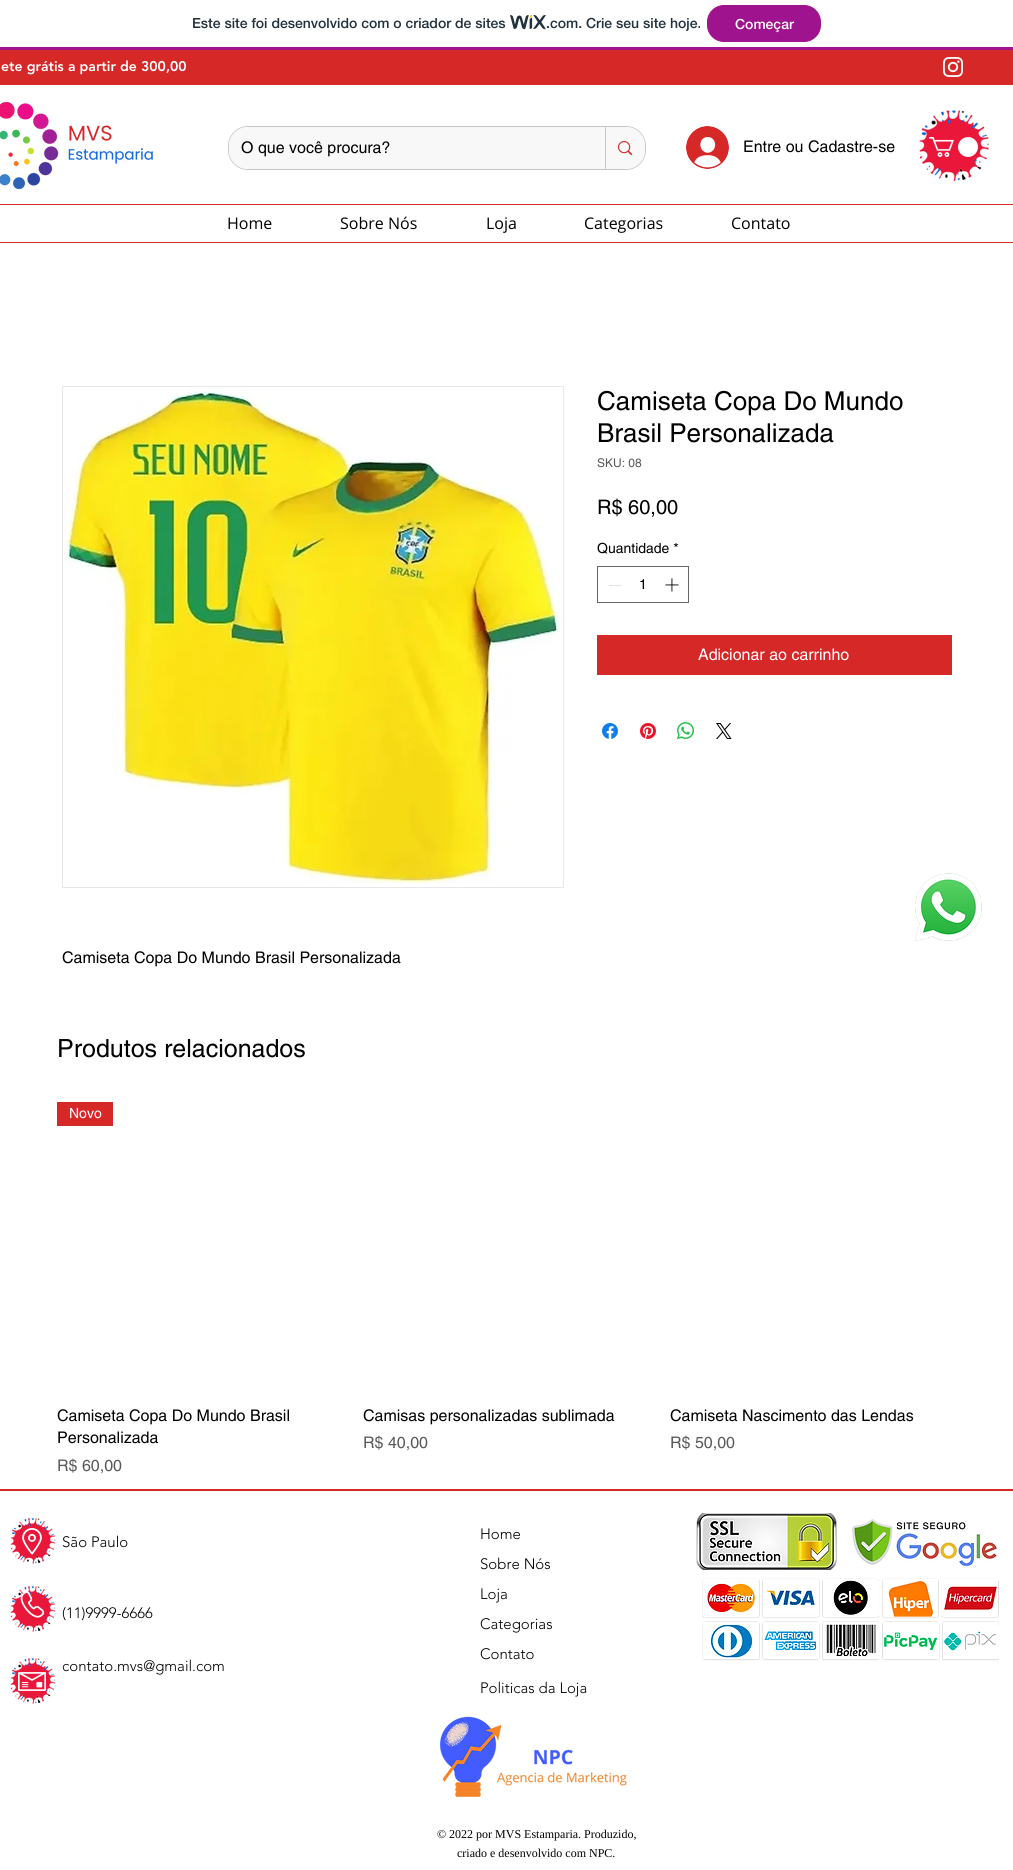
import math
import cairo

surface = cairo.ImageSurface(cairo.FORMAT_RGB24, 1013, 1870)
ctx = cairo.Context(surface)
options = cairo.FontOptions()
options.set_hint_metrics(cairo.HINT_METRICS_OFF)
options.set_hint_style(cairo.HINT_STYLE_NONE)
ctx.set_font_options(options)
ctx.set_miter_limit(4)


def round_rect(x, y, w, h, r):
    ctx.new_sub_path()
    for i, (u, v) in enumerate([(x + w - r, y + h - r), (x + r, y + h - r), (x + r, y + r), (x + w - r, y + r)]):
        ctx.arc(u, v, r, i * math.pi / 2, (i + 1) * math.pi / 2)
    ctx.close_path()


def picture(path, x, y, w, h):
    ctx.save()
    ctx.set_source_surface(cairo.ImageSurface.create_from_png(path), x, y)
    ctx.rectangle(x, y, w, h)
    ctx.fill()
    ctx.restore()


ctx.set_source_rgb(1, 1, 1)
ctx.paint()
ctx.set_source_rgb(0.627, 0.075, 0.557)
ctx.rectangle(0, 47, 1013, 3)
ctx.fill()
ctx.select_font_face("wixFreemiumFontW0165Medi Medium")
ctx.set_font_size(14)
ctx.set_source_rgb(0.125, 0.188, 0.235)
ctx.move_to(192, 28)
ctx.show_text("Este site foi desenvolvido com o criador de sites")
picture("img1.png", 510, 15, 36, 15)
ctx.move_to(546, 28)
ctx.show_text(".com. Crie seu site hoje.")
ctx.set_source_rgb(0.627, 0.075, 0.557)
round_rect(707.5, 5.5, 113, 36, 16.5)
ctx.fill_preserve()
ctx.set_line_width(1)
ctx.stroke()
ctx.set_source_rgb(1, 1, 1)
ctx.move_to(735, 29)
ctx.show_text("Começar")
ctx.set_source_rgb(0.835, 0.157, 0.153)
ctx.rectangle(0, 50, 1013, 35)
ctx.fill()
ctx.select_font_face("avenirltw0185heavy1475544 Black")
ctx.set_source_rgb(1, 1, 1)
ctx.move_to(1, 71)
ctx.show_text("ete grátis a partir de 300,00")
picture("img2.png", 943, 57, 20, 20)
picture("img3.png", 0, 101, 153, 89)
picture("img4.png", 919, 110, 70, 71)
round_rect(228.5, 126.5, 417, 43, 19.5)
ctx.set_source_rgb(0.78, 0.78, 0.78)
ctx.stroke()
ctx.set_source_rgb(0.969, 0.969, 0.969)
round_rect(229, 127, 416, 42, 19)
ctx.fill()
ctx.select_font_face("helvetica")
ctx.set_font_size(16)
ctx.set_source_rgb(0, 0, 0)
ctx.move_to(241, 153)
ctx.show_text("O que você procura?")
ctx.set_source_rgb(0.78, 0.78, 0.78)
ctx.rectangle(605, 127, 1, 42)
ctx.fill()
picture("img5.png", 618, 141, 15, 14)
picture("img6.png", 686, 126, 43, 43)
ctx.set_source_rgb(0, 0, 0)
ctx.move_to(743, 152)
ctx.show_text("Entre ou Cadastre-se")
picture("img7.png", 929, 137, 49, 20)
ctx.set_source_rgb(0.835, 0.157, 0.153)
ctx.rectangle(0, 204, 1013, 1)
ctx.fill()
ctx.select_font_face("Open Sans")
ctx.set_source_rgb(0, 0, 0)
ctx.move_to(227, 229)
ctx.show_text("Home")
ctx.move_to(340, 229)
ctx.show_text("Sobre Nós")
ctx.move_to(486, 229)
ctx.show_text("Loja")
ctx.move_to(584, 229)
ctx.show_text("Categorias")
ctx.move_to(731, 229)
ctx.show_text("Contato")
ctx.set_source_rgb(0.835, 0.157, 0.153)
ctx.rectangle(0, 242, 1013, 1)
ctx.fill()
ctx.select_font_face("helvetica")
ctx.set_font_size(26)
ctx.set_source_rgb(0, 0, 0)
ctx.move_to(597, 410)
ctx.show_text("Camiseta Copa Do Mundo")
ctx.move_to(597, 442)
ctx.show_text("Brasil Personalizada")
ctx.set_font_size(12)
ctx.set_source_rgb(0.349, 0.349, 0.349)
ctx.move_to(597, 467)
ctx.show_text("SKU: 08")
ctx.set_font_size(20)
ctx.set_source_rgb(0, 0, 0)
ctx.move_to(597, 514)
ctx.show_text("R$ 60,00")
ctx.set_font_size(14)
ctx.move_to(597, 553)
ctx.show_text("Quantidade *")
ctx.rectangle(597.5, 566.5, 91, 36)
ctx.set_source_rgb(0.4, 0.4, 0.4)
ctx.stroke()
ctx.set_source_rgb(0.89, 0.89, 0.89)
ctx.rectangle(609, 585, 13, 1)
ctx.fill()
ctx.set_source_rgb(0, 0, 0)
ctx.move_to(639, 589)
ctx.show_text("1")
picture("img8.png", 665, 578, 14, 14)
ctx.set_source_rgb(0.835, 0.157, 0.153)
ctx.rectangle(597, 635, 355, 40)
ctx.fill()
ctx.set_font_size(16)
ctx.set_source_rgb(1, 1, 1)
ctx.move_to(698, 660)
ctx.show_text("Adicionar ao carrinho")
picture("img9.png", 602, 723, 16, 16)
picture("img10.png", 640, 723, 16, 16)
picture("img11.png", 677, 722, 17, 17)
picture("img12.png", 716, 723, 16, 16)
ctx.rectangle(62.5, 386.5, 501, 501)
ctx.set_source_rgb(0.91, 0.902, 0.902)
ctx.stroke()
picture("img13.png", 63, 387, 497, 497)
ctx.set_source_rgb(0, 0, 0)
ctx.move_to(62, 963)
ctx.show_text("Camiseta Copa Do Mundo Brasil Personalizada")
ctx.set_font_size(25)
ctx.move_to(57, 1057)
ctx.show_text("Produtos relacionados")
ctx.set_source_rgb(0.835, 0.157, 0.153)
ctx.rectangle(57, 1102, 56, 24)
ctx.fill()
ctx.set_font_size(14)
ctx.set_source_rgb(1, 1, 1)
ctx.move_to(69, 1118)
ctx.show_text("Novo")
ctx.set_font_size(16)
ctx.set_source_rgb(0, 0, 0)
ctx.move_to(57, 1421)
ctx.show_text("Camiseta Copa Do Mundo Brasil")
ctx.move_to(57, 1443)
ctx.show_text("Personalizada")
ctx.set_source_rgb(0.349, 0.349, 0.349)
ctx.move_to(57, 1471)
ctx.show_text("R$ 60,00")
ctx.set_source_rgb(0, 0, 0)
ctx.move_to(363, 1421)
ctx.show_text("Camisas personalizadas sublimada")
ctx.set_source_rgb(0.349, 0.349, 0.349)
ctx.move_to(363, 1448)
ctx.show_text("R$ 40,00")
ctx.set_source_rgb(0, 0, 0)
ctx.move_to(670, 1421)
ctx.show_text("Camiseta Nascimento das Lendas")
ctx.set_source_rgb(0.349, 0.349, 0.349)
ctx.move_to(670, 1448)
ctx.show_text("R$ 50,00")
picture("img14.png", 914, 873, 68, 69)
ctx.set_source_rgb(0.835, 0.157, 0.153)
ctx.rectangle(0, 1489, 1013, 2)
ctx.fill()
picture("img15.png", 10, 1518, 46, 46)
picture("img16.png", 22, 1528, 20, 27)
ctx.select_font_face("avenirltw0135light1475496 Light")
ctx.set_font_size(15)
ctx.set_source_rgb(0, 0, 0)
ctx.move_to(62, 1547)
ctx.show_text("São Paulo")
ctx.move_to(62, 1618)
ctx.show_text("(11)9999-6666")
ctx.move_to(62, 1671)
ctx.show_text("contato.mvs@gmail.com")
picture("img15.png", 10, 1586, 46, 46)
picture("img17.png", 20, 1591, 25, 27)
picture("img15.png", 10, 1658, 46, 46)
picture("img18.png", 18, 1672, 28, 19)
ctx.move_to(480, 1539)
ctx.show_text("Home")
ctx.move_to(480, 1569)
ctx.show_text("Sobre Nós")
ctx.move_to(480, 1599)
ctx.show_text("Loja")
ctx.move_to(480, 1629)
ctx.show_text("Categorias")
ctx.move_to(480, 1659)
ctx.show_text("Contato")
ctx.move_to(480, 1693)
ctx.show_text("Politicas da Loja")
picture("img19.png", 439, 1716, 188, 81)
ctx.select_font_face("Liberation Serif")
ctx.set_font_size(12)
ctx.move_to(437, 1838)
ctx.show_text("© 2022 por MVS Estamparia. Produzido,")
ctx.move_to(457, 1857)
ctx.show_text("criado e desenvolvido com NPC.")
picture("img20.png", 696, 1513, 141, 57)
picture("img21.png", 852, 1519, 145, 47)
picture("img22.png", 702, 1578, 297, 83)
surface.write_to_png("page.png")
